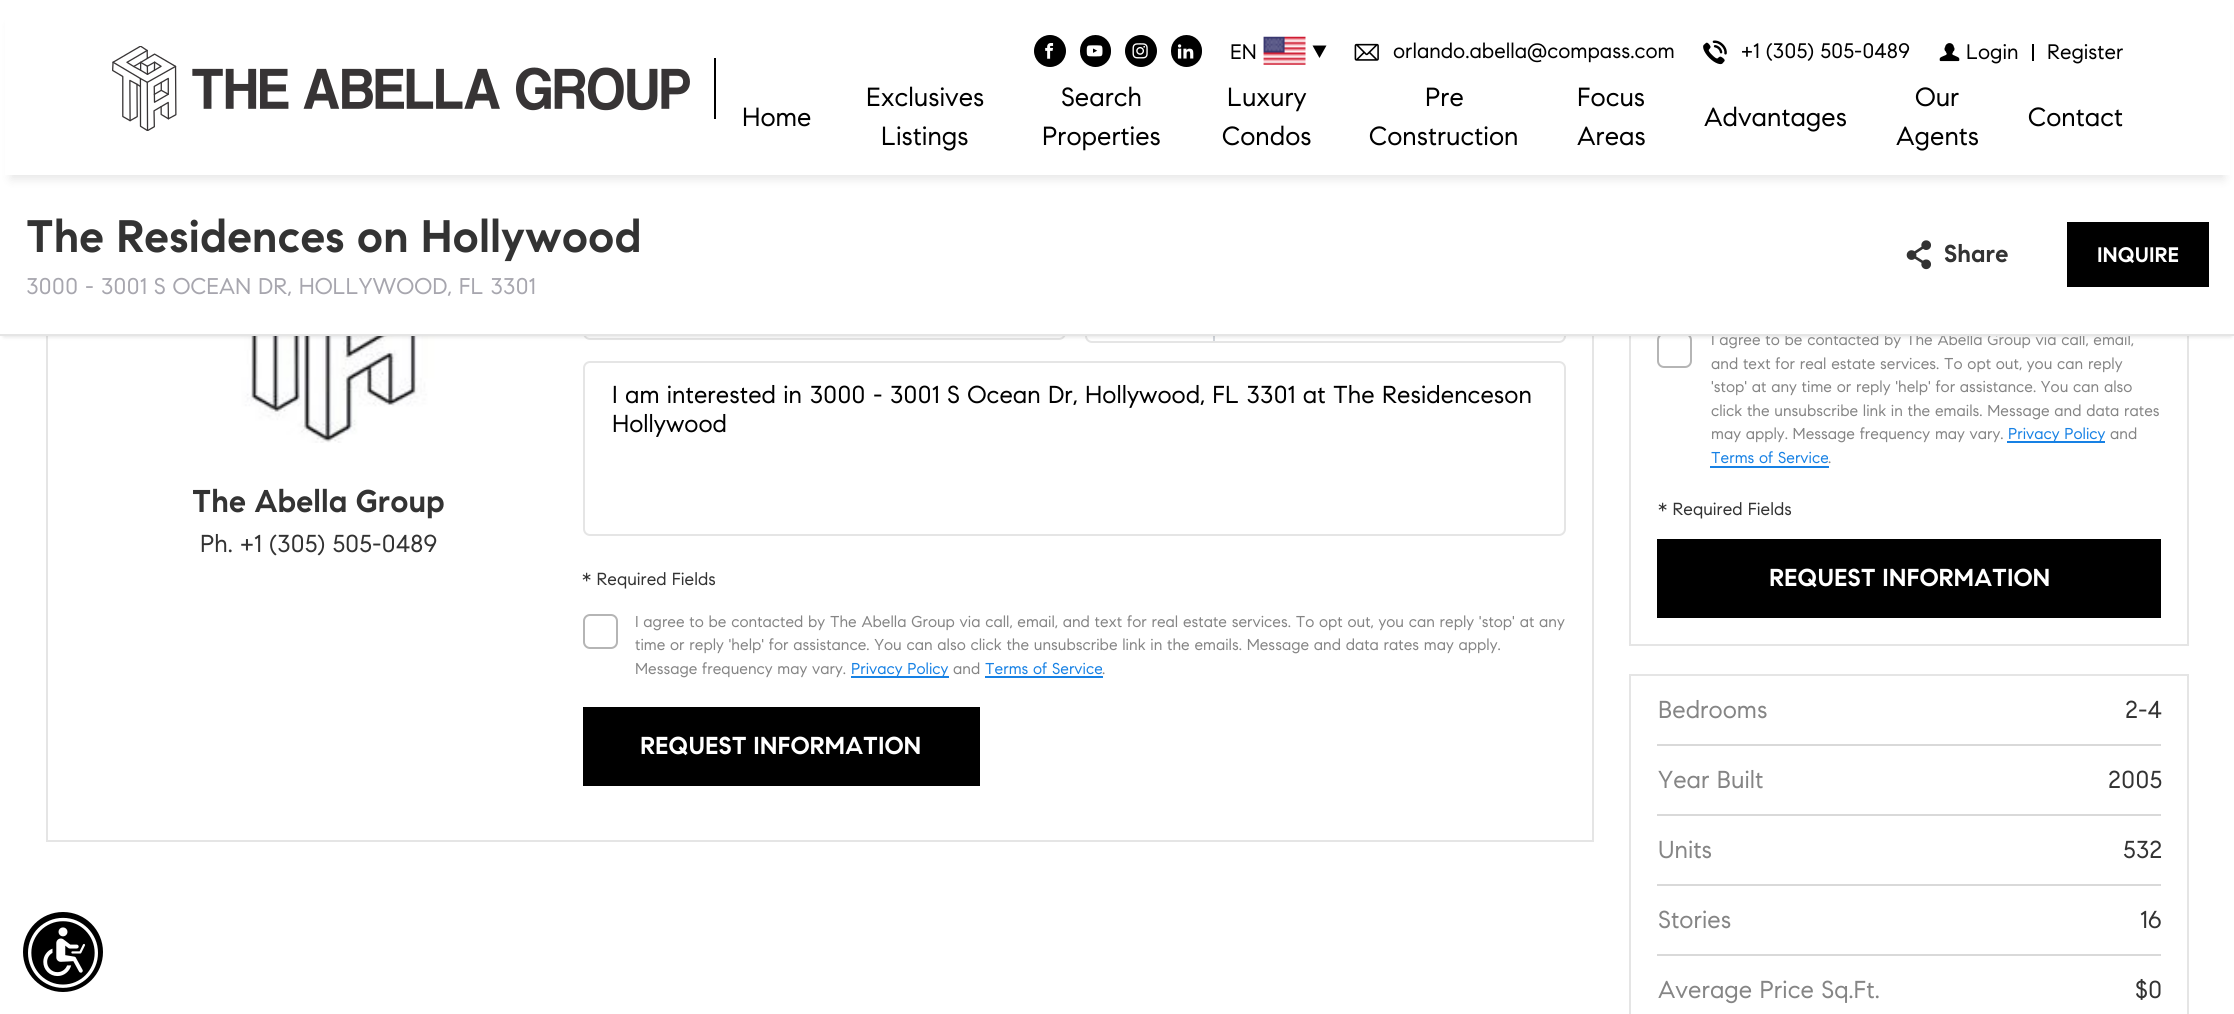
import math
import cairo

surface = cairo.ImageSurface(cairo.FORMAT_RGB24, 2234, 1014)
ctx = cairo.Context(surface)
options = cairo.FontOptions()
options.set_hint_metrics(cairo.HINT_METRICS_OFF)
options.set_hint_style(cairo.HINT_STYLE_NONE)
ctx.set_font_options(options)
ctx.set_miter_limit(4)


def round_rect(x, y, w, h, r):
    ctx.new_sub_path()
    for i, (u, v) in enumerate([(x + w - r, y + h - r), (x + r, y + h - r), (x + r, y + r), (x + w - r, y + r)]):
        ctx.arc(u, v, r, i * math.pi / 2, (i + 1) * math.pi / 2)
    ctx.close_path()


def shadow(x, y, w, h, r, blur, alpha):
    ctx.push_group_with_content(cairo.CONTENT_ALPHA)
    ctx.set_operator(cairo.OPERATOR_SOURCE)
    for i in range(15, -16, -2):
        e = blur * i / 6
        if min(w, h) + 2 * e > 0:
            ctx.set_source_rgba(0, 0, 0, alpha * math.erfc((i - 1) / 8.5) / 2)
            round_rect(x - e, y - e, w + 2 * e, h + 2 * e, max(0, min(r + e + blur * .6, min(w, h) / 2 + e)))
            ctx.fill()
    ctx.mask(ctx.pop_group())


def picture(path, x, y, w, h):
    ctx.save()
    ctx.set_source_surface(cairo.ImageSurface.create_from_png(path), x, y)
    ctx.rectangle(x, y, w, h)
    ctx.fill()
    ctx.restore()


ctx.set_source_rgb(1, 1, 1)
ctx.paint()
ctx.rectangle(47, 155, 1546, 686)
ctx.set_source_rgb(0.898, 0.898, 0.898)
ctx.stroke()
picture("img11.png", 189, 336, 261, 107)
round_rect(584, 271, 481, 68, 6)
ctx.stroke()
round_rect(1086, 271, 479, 71, 6)
ctx.stroke()
ctx.set_source_rgb(0.82, 0.835, 0.859)
ctx.rectangle(1213, 336, 2, 5)
ctx.fill()
ctx.rectangle(1630, -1, 558, 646)
ctx.set_source_rgb(0.898, 0.898, 0.898)
ctx.stroke()
round_rect(1658, 334, 33, 33, 6)
ctx.set_source_rgb(0.71, 0.71, 0.71)
ctx.stroke()
ctx.set_source_rgb(0, 0, 0)
shadow(4, 182, 2227, 154, 0, 2.5, 0.16)
ctx.select_font_face("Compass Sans")
ctx.set_font_size(15.75)
ctx.set_source_rgb(0.522, 0.522, 0.522)
ctx.move_to(1711, 345)
ctx.show_text("I agree to be contacted by The Abella Group via call, email,")
ctx.set_source_rgb(1, 1, 1)
ctx.rectangle(0, 175, 2234, 159)
ctx.fill()
ctx.set_source_rgb(0, 0, 0)
shadow(11, 25, 2213, 154, 0, 5, 0.1)
ctx.set_source_rgb(1, 1, 1)
ctx.rectangle(5, 0, 2225, 175)
ctx.fill()
ctx.set_source_rgb(0, 0, 0)
ctx.arc(1050, 51, 15, 0, 2 * math.pi)
ctx.fill_preserve()
ctx.stroke()
picture("img1.png", 1045, 43, 9, 16)
round_rect(1081, 36, 29, 30, 14.5)
ctx.fill_preserve()
ctx.stroke()
picture("img2.png", 1086, 45, 17, 12)
ctx.arc(1141, 51, 15, 0, 2 * math.pi)
ctx.fill_preserve()
ctx.stroke()
picture("img3.png", 1132, 43, 16, 16)
round_rect(1172, 36, 29, 30, 14.5)
ctx.fill_preserve()
ctx.stroke()
picture("img4.png", 1177, 44, 17, 15)
ctx.set_font_size(21)
ctx.move_to(1230, 59)
ctx.show_text("EN")
picture("img5.png", 1263, 36, 43, 29)
ctx.new_path()
ctx.move_to(1312.5, 45.5)
ctx.line_to(1326.5, 45.5)
ctx.line_to(1319.5, 58)
ctx.close_path()
ctx.fill()
picture("img6.png", 1354, 43, 25, 18)
ctx.move_to(1393, 58)
ctx.show_text("orlando.abella@compass.com")
picture("img7.png", 1703, 40, 24, 25)
ctx.move_to(1741, 58)
ctx.show_text("+1 (305) 505-0489")
picture("img8.png", 1939, 43, 21, 19)
ctx.move_to(1966, 59)
ctx.show_text("Login")
ctx.rectangle(2032, 44, 2, 17)
ctx.fill()
ctx.move_to(2047, 59)
ctx.show_text("Register")
picture("img9.png", 112, 46, 578, 85)
ctx.rectangle(714, 58, 2, 61)
ctx.fill()
ctx.set_font_size(26.25)
ctx.move_to(742, 126)
ctx.show_text("Home")
ctx.move_to(866, 106)
ctx.show_text("Exclusives")
ctx.move_to(881, 145)
ctx.show_text("Listings")
ctx.move_to(1061, 106)
ctx.show_text("Search")
ctx.move_to(1042, 145)
ctx.show_text("Properties")
ctx.move_to(1227, 106)
ctx.show_text("Luxury")
ctx.move_to(1222, 145)
ctx.show_text("Condos")
ctx.move_to(1425, 106)
ctx.show_text("Pre")
ctx.move_to(1369, 145)
ctx.show_text("Construction")
ctx.move_to(1577, 106)
ctx.show_text("Focus")
ctx.move_to(1577, 145)
ctx.show_text("Areas")
ctx.move_to(1704, 126)
ctx.show_text("Advantages")
ctx.move_to(1915, 106)
ctx.show_text("Our")
ctx.move_to(1896, 145)
ctx.show_text("Agents")
ctx.move_to(2028, 126)
ctx.show_text("Contact")
ctx.set_source_rgb(0.898, 0.898, 0.898)
ctx.rectangle(0, 334, 2234, 2)
ctx.fill()
ctx.select_font_face("Compass Sans", cairo.FONT_SLANT_NORMAL, cairo.FONT_WEIGHT_BOLD)
ctx.set_font_size(45.5)
ctx.set_source_rgb(0.2, 0.2, 0.2)
ctx.move_to(26, 252)
ctx.show_text("The Residences on Hollywood")
ctx.select_font_face("Compass Sans")
ctx.set_font_size(22.75)
ctx.set_source_rgb(0.655, 0.651, 0.682)
ctx.move_to(26, 294)
ctx.show_text("3000 - 3001 S OCEAN DR, HOLLYWOOD, FL 3301")
picture("img10.png", 1906, 240, 25, 30)
ctx.select_font_face("Compass Sans", cairo.FONT_SLANT_NORMAL, cairo.FONT_WEIGHT_BOLD)
ctx.set_font_size(24.5)
ctx.set_source_rgb(0.2, 0.2, 0.2)
ctx.move_to(1944, 262)
ctx.show_text("Share")
ctx.set_source_rgb(0, 0, 0)
ctx.rectangle(2067, 222, 142, 65)
ctx.fill()
ctx.set_font_size(21)
ctx.set_source_rgb(1, 1, 1)
ctx.move_to(2097, 262)
ctx.show_text("INQUIRE")
ctx.set_font_size(31.5)
ctx.set_source_rgb(0.2, 0.2, 0.2)
ctx.move_to(192, 512)
ctx.show_text("The Abella Group")
ctx.select_font_face("Compass Sans")
ctx.set_font_size(24.5)
ctx.move_to(200, 552)
ctx.show_text("Ph. +1 (305) 505-0489")
round_rect(584, 362, 981, 173, 6)
ctx.set_source_rgb(0.898, 0.898, 0.898)
ctx.stroke()
ctx.set_source_rgb(0, 0, 0)
ctx.move_to(612, 403)
ctx.show_text("I am interested in 3000 - 3001 S Ocean Dr, Hollywood, FL 3301 at The Residenceson")
ctx.move_to(612, 432)
ctx.show_text("Hollywood")
ctx.set_font_size(17.5)
ctx.set_source_rgb(0.2, 0.2, 0.2)
ctx.move_to(582, 585)
ctx.show_text("* Required Fields")
round_rect(584, 615, 33, 33, 6)
ctx.set_source_rgb(0.71, 0.71, 0.71)
ctx.stroke()
ctx.set_font_size(15.75)
ctx.set_source_rgb(0.522, 0.522, 0.522)
ctx.move_to(635, 627)
ctx.show_text("I agree to be contacted by The Abella Group via call, email, and text for real estate services. To opt out, you can reply 'stop' at any")
ctx.move_to(635, 650)
ctx.show_text("time or reply 'help' for assistance. You can also click the unsubscribe link in the emails. Message and data rates may apply.")
ctx.move_to(635, 674)
ctx.show_text("Message frequency may vary.")
ctx.set_source_rgb(0.09, 0.506, 0.894)
ctx.rectangle(851, 676, 98, 2)
ctx.fill()
ctx.move_to(851, 674)
ctx.show_text("Privacy Policy")
ctx.set_source_rgb(0.522, 0.522, 0.522)
ctx.move_to(953, 674)
ctx.show_text("and")
ctx.set_source_rgb(0.09, 0.506, 0.894)
ctx.move_to(985, 674)
ctx.show_text("Terms of Service")
ctx.rectangle(985, 676, 118, 2)
ctx.fill()
ctx.set_source_rgb(0.522, 0.522, 0.522)
ctx.move_to(1102, 674)
ctx.show_text(".")
ctx.set_source_rgb(0, 0, 0)
ctx.rectangle(583, 707, 397, 79)
ctx.fill()
ctx.select_font_face("Compass Sans", cairo.FONT_SLANT_NORMAL, cairo.FONT_WEIGHT_BOLD)
ctx.set_font_size(24.5)
ctx.set_source_rgb(1, 1, 1)
ctx.move_to(640, 754)
ctx.show_text("REQUEST INFORMATION")
ctx.select_font_face("Compass Sans")
ctx.set_font_size(15.75)
ctx.set_source_rgb(0.522, 0.522, 0.522)
ctx.move_to(1711, 369)
ctx.show_text("and text for real estate services. To opt out, you can reply")
ctx.move_to(1711, 392)
ctx.show_text("'stop' at any time or reply 'help' for assistance. You can also")
ctx.move_to(1711, 416)
ctx.show_text("click the unsubscribe link in the emails. Message and data rates")
ctx.move_to(1711, 439)
ctx.show_text("may apply. Message frequency may vary.")
ctx.set_source_rgb(0.09, 0.506, 0.894)
ctx.rectangle(2007, 441, 98, 2)
ctx.fill()
ctx.move_to(2008, 439)
ctx.show_text("Privacy Policy")
ctx.set_source_rgb(0.522, 0.522, 0.522)
ctx.move_to(2110, 439)
ctx.show_text("and")
ctx.set_source_rgb(0.09, 0.506, 0.894)
ctx.move_to(1711, 463)
ctx.show_text("Terms of Service")
ctx.rectangle(1710, 466, 119, 2)
ctx.fill()
ctx.set_source_rgb(0.522, 0.522, 0.522)
ctx.move_to(1828, 463)
ctx.show_text(".")
ctx.set_font_size(17.5)
ctx.set_source_rgb(0.2, 0.2, 0.2)
ctx.move_to(1658, 515)
ctx.show_text("* Required Fields")
ctx.set_source_rgb(0, 0, 0)
ctx.rectangle(1657, 539, 504, 79)
ctx.fill()
ctx.select_font_face("Compass Sans", cairo.FONT_SLANT_NORMAL, cairo.FONT_WEIGHT_BOLD)
ctx.set_font_size(24.5)
ctx.set_source_rgb(1, 1, 1)
ctx.move_to(1769, 586)
ctx.show_text("REQUEST INFORMATION")
ctx.rectangle(1630, 675, 558, 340)
ctx.set_source_rgb(0.898, 0.898, 0.898)
ctx.stroke()
ctx.set_source_rgb(0.851, 0.851, 0.851)
ctx.rectangle(1657, 744, 504, 2)
ctx.fill()
ctx.select_font_face("Compass Sans")
ctx.set_source_rgb(0.522, 0.522, 0.522)
ctx.move_to(1658, 718)
ctx.show_text("Bedrooms")
ctx.set_source_rgb(0.2, 0.2, 0.2)
ctx.move_to(2125, 718)
ctx.show_text("2-4")
ctx.set_source_rgb(0.851, 0.851, 0.851)
ctx.rectangle(1657, 814, 504, 2)
ctx.fill()
ctx.set_source_rgb(0.522, 0.522, 0.522)
ctx.move_to(1658, 788)
ctx.show_text("Year Built")
ctx.set_source_rgb(0.2, 0.2, 0.2)
ctx.move_to(2108, 788)
ctx.show_text("2005")
ctx.set_source_rgb(0.851, 0.851, 0.851)
ctx.rectangle(1657, 884, 504, 2)
ctx.fill()
ctx.set_source_rgb(0.522, 0.522, 0.522)
ctx.move_to(1658, 858)
ctx.show_text("Units")
ctx.set_source_rgb(0.2, 0.2, 0.2)
ctx.move_to(2123, 858)
ctx.show_text("532")
ctx.set_source_rgb(0.851, 0.851, 0.851)
ctx.rectangle(1657, 954, 504, 2)
ctx.fill()
ctx.set_source_rgb(0.522, 0.522, 0.522)
ctx.move_to(1658, 928)
ctx.show_text("Stories")
ctx.set_source_rgb(0.2, 0.2, 0.2)
ctx.move_to(2140, 928)
ctx.show_text("16")
ctx.set_source_rgb(0.522, 0.522, 0.522)
ctx.move_to(1658, 998)
ctx.show_text("Average Price Sq.Ft.")
ctx.set_source_rgb(0.2, 0.2, 0.2)
ctx.move_to(2135, 998)
ctx.show_text("$0")
ctx.set_source_rgb(0, 0, 0)
ctx.new_path()
ctx.arc(63, 952, 40, 0, 2 * math.pi)
ctx.fill()
picture("img12.png", 28, 917, 70, 71)
surface.write_to_png("page.png")
